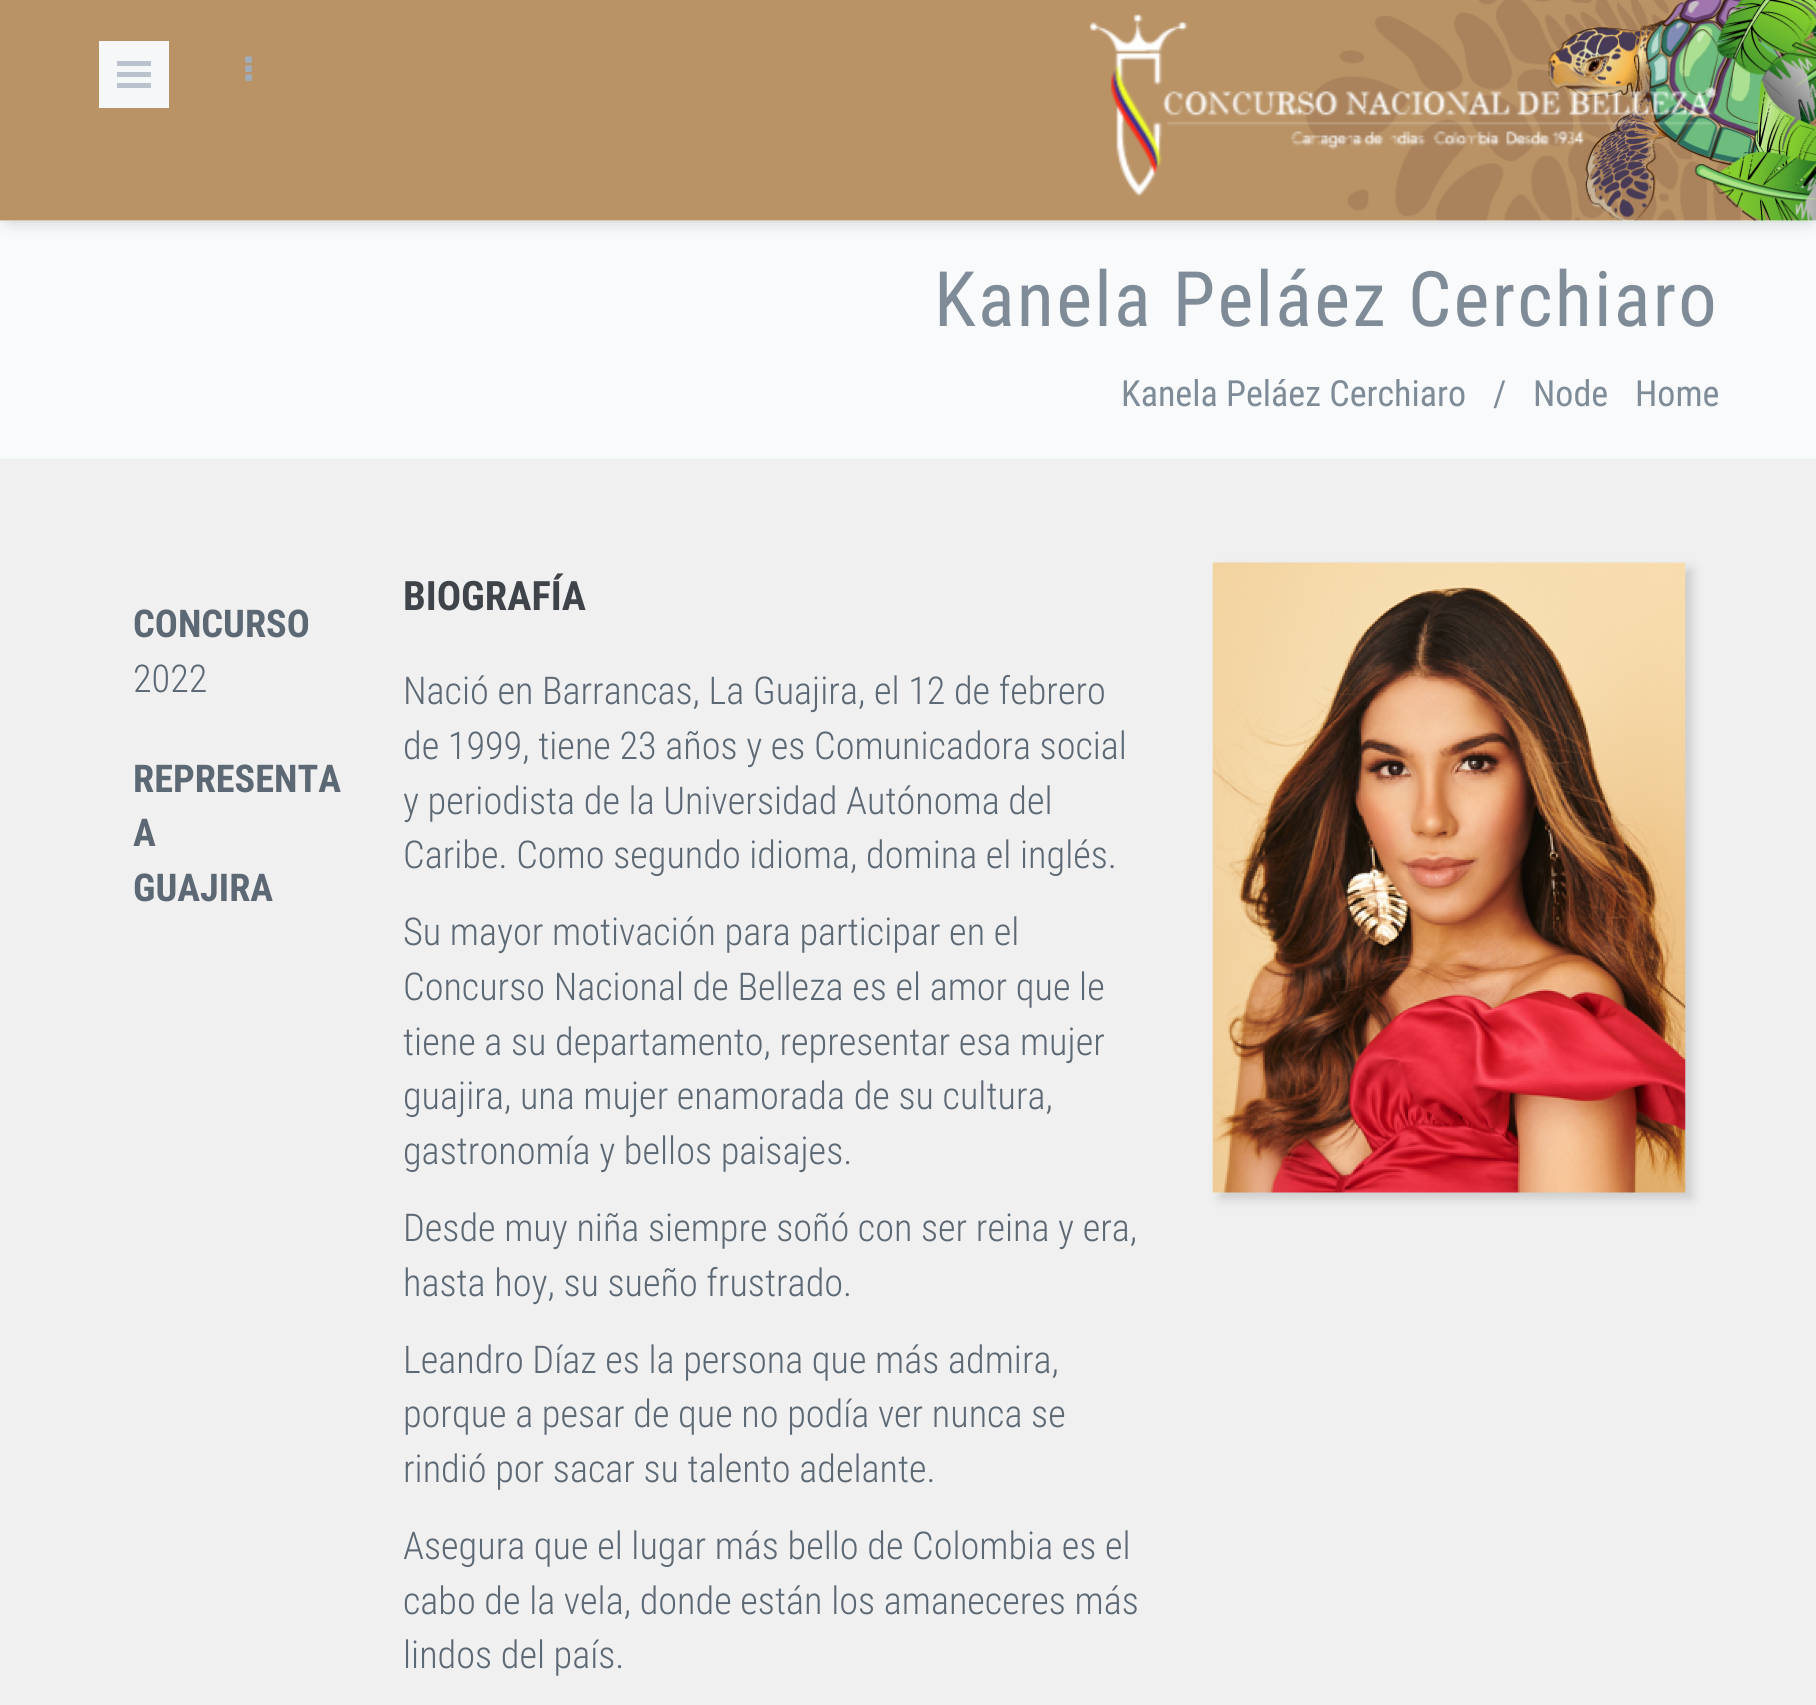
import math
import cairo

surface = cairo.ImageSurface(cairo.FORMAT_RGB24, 1816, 1705)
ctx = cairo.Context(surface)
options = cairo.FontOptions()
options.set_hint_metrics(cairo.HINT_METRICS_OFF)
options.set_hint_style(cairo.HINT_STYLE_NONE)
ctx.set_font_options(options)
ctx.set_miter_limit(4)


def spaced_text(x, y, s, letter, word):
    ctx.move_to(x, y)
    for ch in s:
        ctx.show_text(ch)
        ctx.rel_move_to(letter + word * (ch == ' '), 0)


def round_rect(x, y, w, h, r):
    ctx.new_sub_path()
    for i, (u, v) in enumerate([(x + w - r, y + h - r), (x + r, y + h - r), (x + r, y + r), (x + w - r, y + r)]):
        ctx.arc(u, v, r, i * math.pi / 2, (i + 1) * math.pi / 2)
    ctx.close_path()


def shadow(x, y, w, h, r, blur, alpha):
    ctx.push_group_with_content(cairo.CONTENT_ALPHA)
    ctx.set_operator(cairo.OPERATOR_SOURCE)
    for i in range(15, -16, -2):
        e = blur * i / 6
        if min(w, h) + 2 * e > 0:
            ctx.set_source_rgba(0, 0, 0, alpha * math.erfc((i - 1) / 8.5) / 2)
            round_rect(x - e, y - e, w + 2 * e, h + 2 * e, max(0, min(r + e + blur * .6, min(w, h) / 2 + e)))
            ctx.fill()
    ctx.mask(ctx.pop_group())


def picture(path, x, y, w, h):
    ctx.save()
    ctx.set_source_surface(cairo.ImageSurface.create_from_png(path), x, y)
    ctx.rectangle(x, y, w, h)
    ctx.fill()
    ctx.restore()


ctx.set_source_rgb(0.941, 0.941, 0.941)
ctx.paint()
ctx.set_source_rgb(0.969, 0.98, 0.984)
ctx.rectangle(0, 223, 1816, 234)
ctx.fill()
ctx.set_source_rgb(0.957, 0.973, 0.976)
ctx.rectangle(0, 221, 1816, 2)
ctx.fill()
ctx.set_source_rgb(0, 0, 0)
shadow(9, 16, 1800, 202, 0, 10, 0.25)
ctx.set_source_rgb(1, 1, 1)
ctx.rectangle(0, 220, 1816, 1)
ctx.fill()
picture("img1.png", 0, 0, 1816, 221)
ctx.set_source_rgb(0.961, 0.965, 0.973)
ctx.rectangle(99, 41, 70, 67)
ctx.fill()
ctx.set_source_rgb(0.729, 0.765, 0.804)
ctx.rectangle(117, 61, 34, 5)
ctx.fill()
ctx.rectangle(117, 72, 34, 5)
ctx.fill()
ctx.rectangle(117, 83, 34, 5)
ctx.fill()
picture("img2.png", 245, 56, 7, 25)
picture("img3.png", 1089, 14, 628, 183)
ctx.set_source_rgb(0.957, 0.973, 0.976)
ctx.rectangle(0, 457, 1816, 2)
ctx.fill()
ctx.select_font_face("Roboto Condensed")
ctx.set_font_size(76.5)
ctx.set_source_rgb(0.498, 0.549, 0.592)
spaced_text(934, 326, "Kanela Peláez Cerchiaro", 2.25, 0)
ctx.set_font_size(36)
ctx.move_to(1121, 406)
ctx.show_text("Kanela Peláez Cerchiaro")
ctx.move_to(1493, 406)
ctx.show_text("/")
ctx.move_to(1533, 406)
ctx.show_text("Node")
ctx.move_to(1635, 406)
ctx.show_text("Home")
ctx.select_font_face("Roboto Condensed", cairo.FONT_SLANT_NORMAL, cairo.FONT_WEIGHT_BOLD)
ctx.set_font_size(38.25)
ctx.set_source_rgb(0.361, 0.408, 0.451)
ctx.move_to(133, 637)
ctx.show_text("CONCURSO")
ctx.select_font_face("Roboto Condensed Light")
ctx.move_to(133, 692)
ctx.show_text("2022")
ctx.select_font_face("Roboto Condensed", cairo.FONT_SLANT_NORMAL, cairo.FONT_WEIGHT_BOLD)
ctx.move_to(133, 792)
ctx.show_text("REPRESENTA")
ctx.move_to(133, 846)
ctx.show_text("A")
ctx.move_to(133, 901)
ctx.show_text("GUAJIRA")
ctx.set_font_size(40.5)
ctx.set_source_rgb(0.247, 0.267, 0.29)
ctx.move_to(403, 610)
ctx.show_text("BIOGRAFÍA")
ctx.select_font_face("Roboto Condensed Light")
ctx.set_font_size(38.25)
ctx.set_source_rgb(0.361, 0.408, 0.451)
ctx.move_to(403, 704)
ctx.show_text("Nació en Barrancas, La Guajira, el 12 de febrero")
ctx.move_to(403, 759)
ctx.show_text("de 1999, tiene 23 años y es Comunicadora social")
ctx.move_to(403, 814)
ctx.show_text("y periodista de la Universidad Autónoma del")
ctx.move_to(403, 868)
ctx.show_text("Caribe. Como segundo idioma, domina el inglés.")
ctx.move_to(403, 945)
ctx.show_text("Su mayor motivación para participar en el")
ctx.move_to(403, 1000)
ctx.show_text("Concurso Nacional de Belleza es el amor que le")
ctx.move_to(403, 1055)
ctx.show_text("tiene a su departamento, representar esa mujer")
ctx.move_to(403, 1109)
ctx.show_text("guajira, una mujer enamorada de su cultura,")
ctx.move_to(403, 1164)
ctx.show_text("gastronomía y bellos paisajes.")
ctx.move_to(403, 1241)
ctx.show_text("Desde muy niña siempre soñó con ser reina y era,")
ctx.move_to(403, 1296)
ctx.show_text("hasta hoy, su sueño frustrado.")
ctx.move_to(403, 1373)
ctx.show_text("Leandro Díaz es la persona que más admira,")
ctx.move_to(403, 1427)
ctx.show_text("porque a pesar de que no podía ver nunca se")
ctx.move_to(403, 1482)
ctx.show_text("rindió por sacar su talento adelante.")
ctx.move_to(403, 1559)
ctx.show_text("Asegura que el lugar más bello de Colombia es el")
ctx.move_to(403, 1614)
ctx.show_text("cabo de la vela, donde están los amaneceres más")
ctx.move_to(403, 1668)
ctx.show_text("lindos del país.")
ctx.set_source_rgb(0.8, 0.8, 0.8)
shadow(1220, 569, 472, 630, 0, 5.5, 1)
picture("img4.png", 1212, 562, 474, 631)
surface.write_to_png("page.png")
